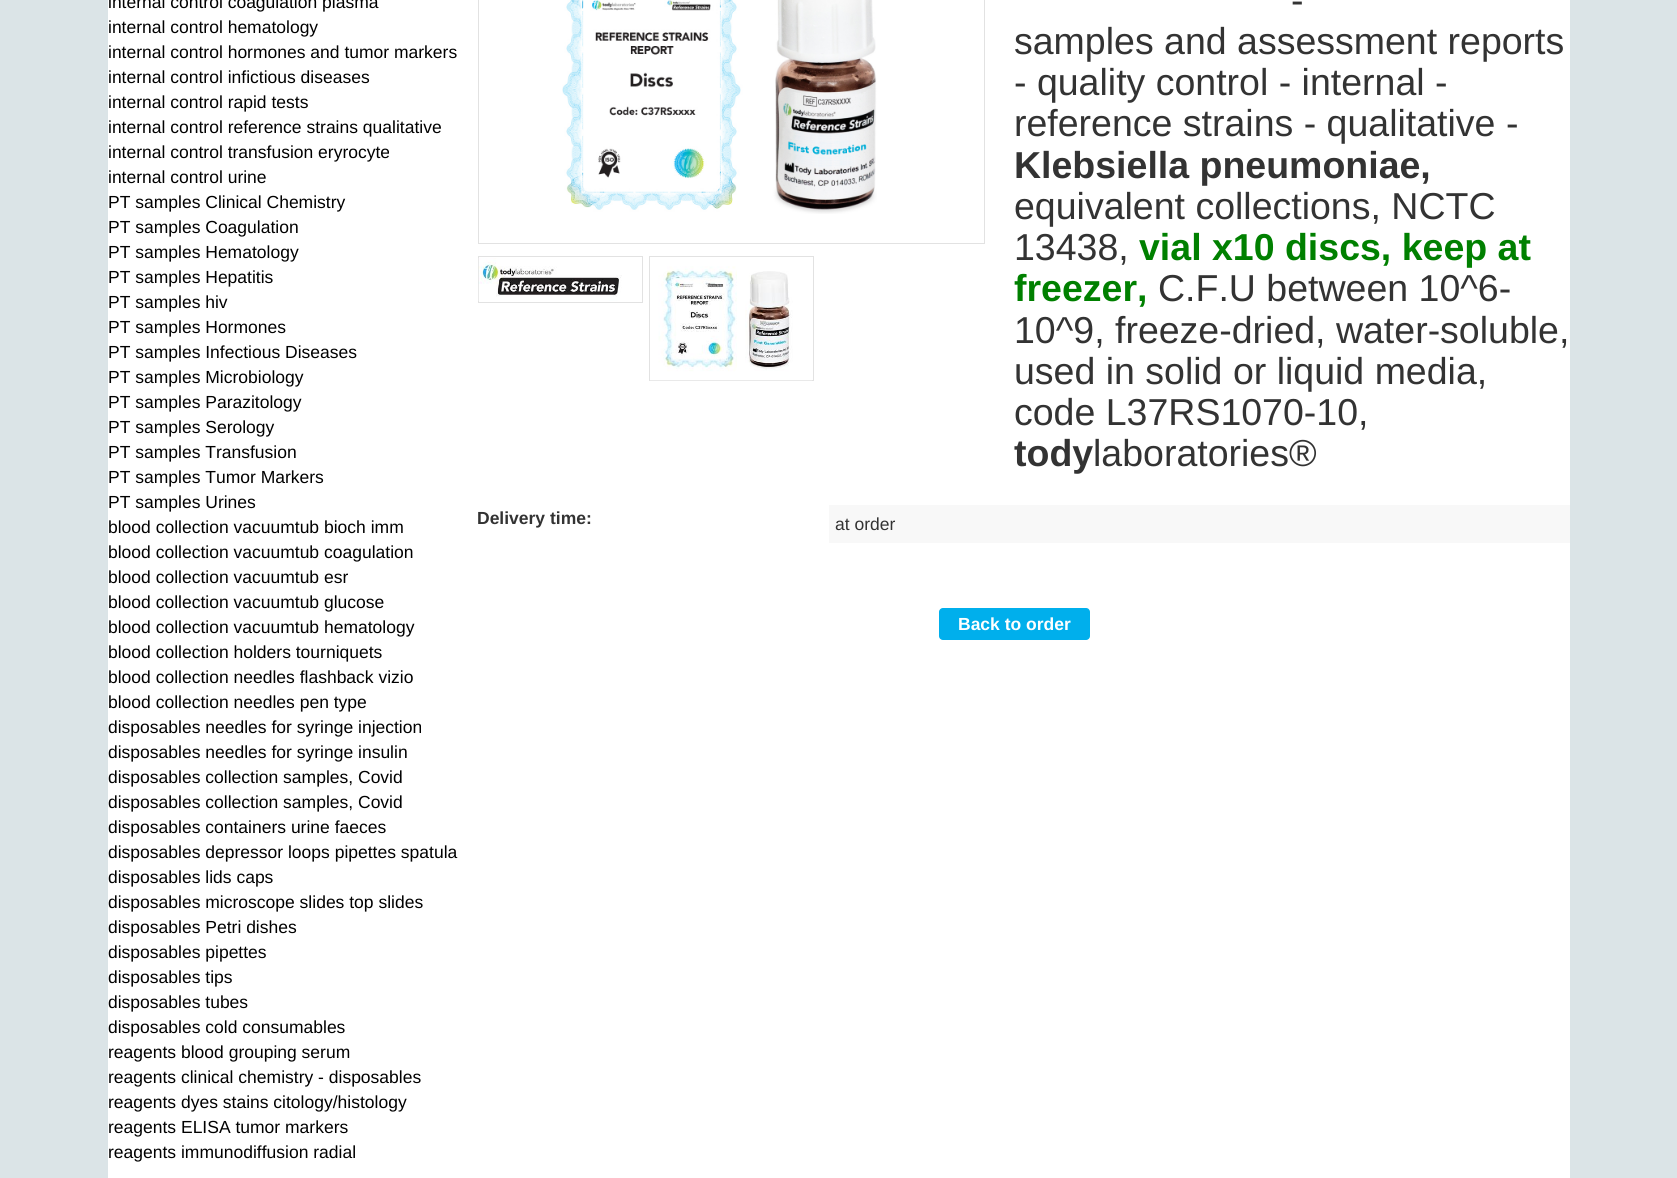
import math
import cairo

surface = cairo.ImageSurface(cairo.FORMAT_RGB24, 1677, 1178)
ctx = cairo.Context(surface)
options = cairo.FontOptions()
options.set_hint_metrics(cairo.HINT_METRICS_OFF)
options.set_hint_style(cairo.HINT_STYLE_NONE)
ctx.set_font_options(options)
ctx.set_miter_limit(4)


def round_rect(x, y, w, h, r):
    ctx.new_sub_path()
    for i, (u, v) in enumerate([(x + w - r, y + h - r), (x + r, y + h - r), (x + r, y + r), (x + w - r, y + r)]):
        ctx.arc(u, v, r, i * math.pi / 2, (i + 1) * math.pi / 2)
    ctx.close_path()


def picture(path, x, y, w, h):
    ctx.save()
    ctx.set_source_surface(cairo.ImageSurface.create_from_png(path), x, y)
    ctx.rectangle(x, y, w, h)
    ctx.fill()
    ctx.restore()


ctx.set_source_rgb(0.859, 0.894, 0.906)
ctx.paint()
ctx.set_source_rgb(1, 1, 1)
ctx.rectangle(108, 0, 1462, 1178)
ctx.fill()
ctx.select_font_face("Liberation Sans")
ctx.set_font_size(17.5)
ctx.set_source_rgb(0, 0, 0)
ctx.move_to(108, 8)
ctx.show_text("internal control coagulation plasma")
ctx.move_to(108, 33)
ctx.show_text("internal control hematology")
ctx.move_to(108, 58)
ctx.show_text("internal control hormones and tumor markers")
ctx.move_to(108, 83)
ctx.show_text("internal control infictious diseases")
ctx.move_to(108, 108)
ctx.show_text("internal control rapid tests")
ctx.move_to(108, 133)
ctx.show_text("internal control reference strains qualitative")
ctx.move_to(108, 158)
ctx.show_text("internal control transfusion eryrocyte")
ctx.move_to(108, 183)
ctx.show_text("internal control urine")
ctx.move_to(108, 208)
ctx.show_text("PT samples Clinical Chemistry")
ctx.move_to(108, 233)
ctx.show_text("PT samples Coagulation")
ctx.move_to(108, 258)
ctx.show_text("PT samples Hematology")
ctx.move_to(108, 283)
ctx.show_text("PT samples Hepatitis")
ctx.move_to(108, 308)
ctx.show_text("PT samples hiv")
ctx.move_to(108, 333)
ctx.show_text("PT samples Hormones")
ctx.move_to(108, 358)
ctx.show_text("PT samples Infectious Diseases")
ctx.move_to(108, 383)
ctx.show_text("PT samples Microbiology")
ctx.move_to(108, 408)
ctx.show_text("PT samples Parazitology")
ctx.move_to(108, 433)
ctx.show_text("PT samples Serology")
ctx.move_to(108, 458)
ctx.show_text("PT samples Transfusion")
ctx.move_to(108, 483)
ctx.show_text("PT samples Tumor Markers")
ctx.move_to(108, 508)
ctx.show_text("PT samples Urines")
ctx.move_to(108, 533)
ctx.show_text("blood collection vacuumtub bioch imm")
ctx.move_to(108, 558)
ctx.show_text("blood collection vacuumtub coagulation")
ctx.move_to(108, 583)
ctx.show_text("blood collection vacuumtub esr")
ctx.move_to(108, 608)
ctx.show_text("blood collection vacuumtub glucose")
ctx.move_to(108, 633)
ctx.show_text("blood collection vacuumtub hematology")
ctx.move_to(108, 658)
ctx.show_text("blood collection holders tourniquets")
ctx.move_to(108, 683)
ctx.show_text("blood collection needles flashback vizio")
ctx.move_to(108, 708)
ctx.show_text("blood collection needles pen type")
ctx.move_to(108, 733)
ctx.show_text("disposables needles for syringe injection")
ctx.move_to(108, 758)
ctx.show_text("disposables needles for syringe insulin")
ctx.move_to(108, 783)
ctx.show_text("disposables collection samples, Covid")
ctx.move_to(108, 808)
ctx.show_text("disposables collection samples, Covid")
ctx.move_to(108, 833)
ctx.show_text("disposables containers urine faeces")
ctx.move_to(108, 858)
ctx.show_text("disposables depressor loops pipettes spatula")
ctx.move_to(108, 883)
ctx.show_text("disposables lids caps")
ctx.move_to(108, 908)
ctx.show_text("disposables microscope slides top slides")
ctx.move_to(108, 933)
ctx.show_text("disposables Petri dishes")
ctx.move_to(108, 958)
ctx.show_text("disposables pipettes")
ctx.move_to(108, 983)
ctx.show_text("disposables tips")
ctx.move_to(108, 1008)
ctx.show_text("disposables tubes")
ctx.move_to(108, 1033)
ctx.show_text("disposables cold consumables")
ctx.move_to(108, 1058)
ctx.show_text("reagents blood grouping serum")
ctx.move_to(108, 1083)
ctx.show_text("reagents clinical chemistry - disposables")
ctx.move_to(108, 1108)
ctx.show_text("reagents dyes stains citology/histology")
ctx.move_to(108, 1133)
ctx.show_text("reagents ELISA tumor markers")
ctx.move_to(108, 1158)
ctx.show_text("reagents immunodiffusion radial")
ctx.rectangle(478.5, -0.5, 506, 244)
ctx.set_source_rgb(0.886, 0.886, 0.886)
ctx.set_line_width(1)
ctx.stroke()
picture("img1.png", 562, 0, 315, 214)
ctx.rectangle(478.5, 256.5, 164, 46)
ctx.stroke()
picture("img2.png", 478, 258, 144, 43)
ctx.rectangle(649.5, 256.5, 164, 124)
ctx.stroke()
picture("img3.png", 650, 266, 162, 115)
ctx.set_font_size(37.5)
ctx.set_source_rgb(0.2, 0.2, 0.2)
ctx.move_to(1291, 13)
ctx.show_text("-")
ctx.move_to(1014, 54)
ctx.show_text("samples and assessment reports")
ctx.move_to(1014, 95)
ctx.show_text("- quality control - internal -")
ctx.move_to(1014, 136)
ctx.show_text("reference strains - qualitative -")
ctx.select_font_face("Liberation Sans", cairo.FONT_SLANT_NORMAL, cairo.FONT_WEIGHT_BOLD)
ctx.move_to(1014, 178)
ctx.show_text("Klebsiella pneumoniae,")
ctx.select_font_face("Liberation Sans")
ctx.move_to(1014, 219)
ctx.show_text("equivalent collections, NCTC")
ctx.move_to(1014, 260)
ctx.show_text("13438,")
ctx.select_font_face("Liberation Sans", cairo.FONT_SLANT_NORMAL, cairo.FONT_WEIGHT_BOLD)
ctx.set_source_rgb(0, 0.502, 0)
ctx.move_to(1139, 260)
ctx.show_text("vial x10 discs, keep at")
ctx.move_to(1014, 301)
ctx.show_text("freezer,")
ctx.select_font_face("Liberation Sans")
ctx.set_source_rgb(0.2, 0.2, 0.2)
ctx.move_to(1158, 301)
ctx.show_text("C.F.U between 10^6-")
ctx.move_to(1014, 343)
ctx.show_text("10^9, freeze-dried, water-soluble,")
ctx.move_to(1014, 384)
ctx.show_text("used in solid or liquid media,")
ctx.move_to(1014, 425)
ctx.show_text("code L37RS1070-10,")
ctx.select_font_face("Liberation Sans", cairo.FONT_SLANT_NORMAL, cairo.FONT_WEIGHT_BOLD)
ctx.move_to(1014, 466)
ctx.show_text("tody")
ctx.select_font_face("Liberation Sans")
ctx.move_to(1093, 466)
ctx.show_text("laboratories®")
ctx.select_font_face("Liberation Sans", cairo.FONT_SLANT_NORMAL, cairo.FONT_WEIGHT_BOLD)
ctx.set_font_size(17.5)
ctx.move_to(477, 524)
ctx.show_text("Delivery time:")
ctx.set_source_rgb(0.969, 0.969, 0.969)
ctx.rectangle(829, 505, 741, 38)
ctx.fill()
ctx.select_font_face("Liberation Sans")
ctx.set_source_rgb(0.2, 0.2, 0.2)
ctx.move_to(835, 530)
ctx.show_text("at order")
ctx.set_source_rgb(0, 0.686, 0.925)
round_rect(939, 608, 151, 32, 4)
ctx.fill()
ctx.select_font_face("Liberation Sans", cairo.FONT_SLANT_NORMAL, cairo.FONT_WEIGHT_BOLD)
ctx.set_source_rgb(1, 1, 1)
ctx.move_to(958, 630)
ctx.show_text("Back to order")
surface.write_to_png("page.png")
